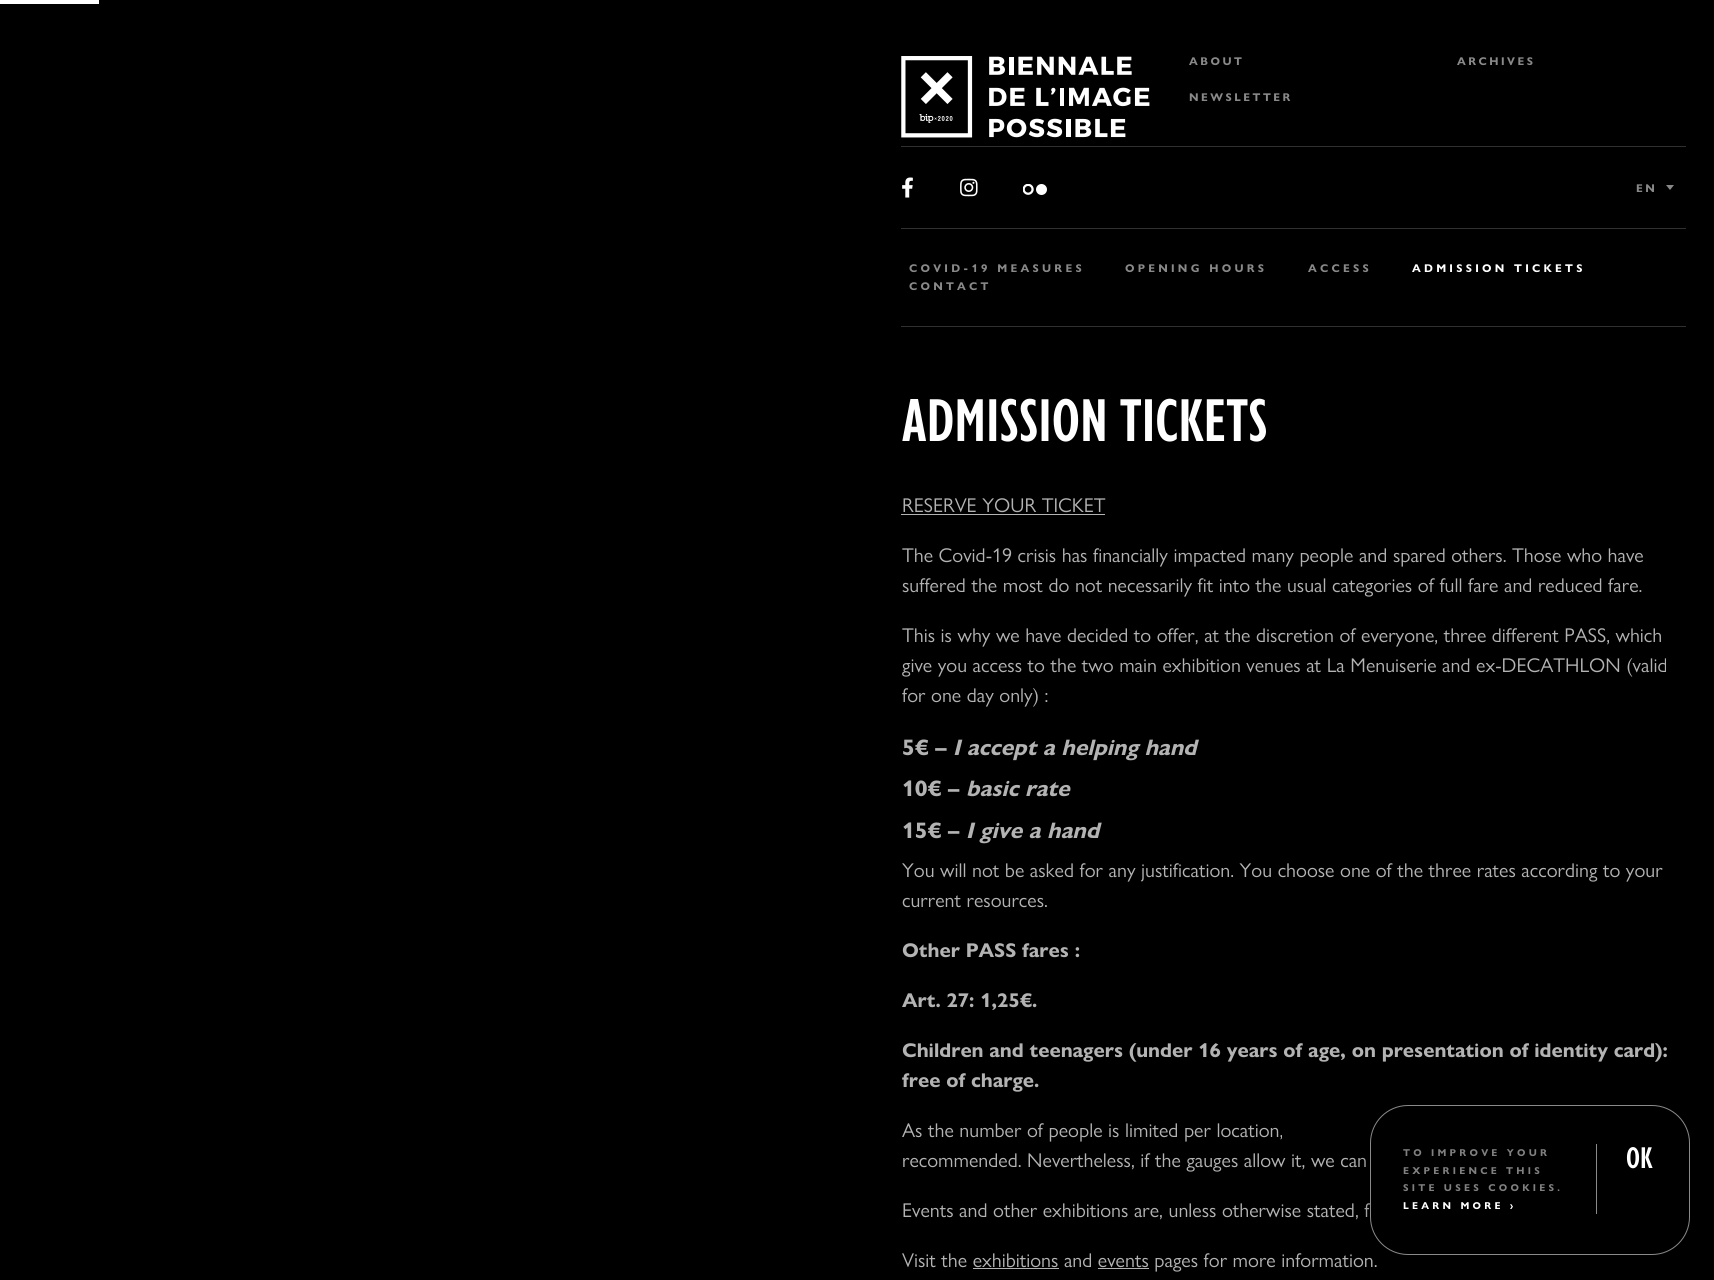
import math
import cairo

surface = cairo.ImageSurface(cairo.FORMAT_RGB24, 1714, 1280)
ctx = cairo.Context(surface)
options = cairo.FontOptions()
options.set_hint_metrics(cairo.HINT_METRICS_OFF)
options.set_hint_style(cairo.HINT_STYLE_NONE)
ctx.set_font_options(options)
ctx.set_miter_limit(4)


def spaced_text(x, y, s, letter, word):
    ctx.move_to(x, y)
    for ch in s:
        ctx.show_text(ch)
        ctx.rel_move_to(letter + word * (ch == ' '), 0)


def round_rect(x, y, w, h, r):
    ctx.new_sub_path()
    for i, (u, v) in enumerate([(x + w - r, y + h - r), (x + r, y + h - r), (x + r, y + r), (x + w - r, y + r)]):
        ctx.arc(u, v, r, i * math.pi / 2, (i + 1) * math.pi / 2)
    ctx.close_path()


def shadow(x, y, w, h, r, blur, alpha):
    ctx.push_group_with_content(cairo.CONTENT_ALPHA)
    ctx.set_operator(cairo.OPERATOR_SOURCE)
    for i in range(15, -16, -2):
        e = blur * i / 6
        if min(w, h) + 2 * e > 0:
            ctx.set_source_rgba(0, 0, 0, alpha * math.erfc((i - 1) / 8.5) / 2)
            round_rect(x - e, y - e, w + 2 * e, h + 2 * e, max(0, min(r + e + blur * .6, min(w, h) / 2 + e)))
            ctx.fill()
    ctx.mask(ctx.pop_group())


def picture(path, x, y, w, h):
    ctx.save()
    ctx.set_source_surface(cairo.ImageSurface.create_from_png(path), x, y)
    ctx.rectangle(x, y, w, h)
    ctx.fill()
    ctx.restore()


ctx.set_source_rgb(0, 0, 0)
ctx.paint()
ctx.set_source_rgb(1, 1, 1)
ctx.rectangle(0, 0, 99, 4)
ctx.fill()
picture("img1.png", 901, 56, 249, 82)
ctx.select_font_face("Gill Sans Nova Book", cairo.FONT_SLANT_NORMAL, cairo.FONT_WEIGHT_BOLD)
ctx.set_font_size(11.25)
ctx.set_source_rgb(0.537, 0.537, 0.537)
spaced_text(1189, 65, "ABOUT", 2.5, 0)
spaced_text(1457, 65, "ARCHIVES", 2.5, 0)
spaced_text(1189, 101, "NEWSLETTER", 2.5, 0)
ctx.set_source_rgb(0.188, 0.188, 0.188)
ctx.rectangle(901, 146, 785, 1)
ctx.fill()
picture("img2.png", 902, 177, 11, 21)
picture("img3.png", 960, 178, 18, 19)
picture("img4.png", 1023, 184, 24, 11)
ctx.set_source_rgb(0.537, 0.537, 0.537)
spaced_text(1636, 192, "EN", 2.5, 0)
ctx.new_path()
ctx.move_to(1666, 185)
ctx.line_to(1674, 185)
ctx.line_to(1670, 190)
ctx.close_path()
ctx.fill()
ctx.set_source_rgb(0.188, 0.188, 0.188)
ctx.rectangle(901, 228, 785, 1)
ctx.fill()
ctx.rectangle(901, 326, 785, 1)
ctx.fill()
ctx.set_source_rgb(0.537, 0.537, 0.537)
spaced_text(909, 272, "COVID-19 MEASURES", 3.25, 0)
spaced_text(1125, 272, "OPENING HOURS", 3.25, 0)
spaced_text(1308, 272, "ACCESS", 3.25, 0)
ctx.set_source_rgb(1, 1, 1)
spaced_text(1412, 272, "ADMISSION TICKETS", 3.25, 0)
ctx.set_source_rgb(0.537, 0.537, 0.537)
spaced_text(909, 290, "CONTACT", 3.25, 0)
ctx.select_font_face("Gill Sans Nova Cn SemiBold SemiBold")
ctx.set_font_size(62.5)
ctx.set_source_rgb(1, 1, 1)
ctx.move_to(902, 441)
ctx.show_text("ADMISSION TICKETS")
ctx.select_font_face("Gill Sans Nova Book")
ctx.set_font_size(20)
ctx.set_source_rgb(0.702, 0.702, 0.702)
ctx.move_to(902, 512)
ctx.show_text("RESERVE YOUR TICKET")
ctx.rectangle(901, 514, 204, 1)
ctx.fill()
ctx.move_to(902, 562)
ctx.show_text("The Covid-19 crisis has financially impacted many people and spared others. Those who have")
ctx.move_to(902, 592)
ctx.show_text("suffered the most do not necessarily fit into the usual categories of full fare and reduced fare.")
ctx.move_to(902, 642)
ctx.show_text("This is why we have decided to offer, at the discretion of everyone, three different PASS, which")
ctx.move_to(902, 672)
ctx.show_text("give you access to the two main exhibition venues at La Menuiserie and ex-DECATHLON (valid")
ctx.move_to(902, 702)
ctx.show_text("for one day only) :")
ctx.select_font_face("Gill Sans Nova Book", cairo.FONT_SLANT_NORMAL, cairo.FONT_WEIGHT_BOLD)
ctx.set_font_size(22.5)
ctx.move_to(902, 755)
ctx.show_text("5€ –")
ctx.select_font_face("Gill Sans Nova Book", cairo.FONT_SLANT_ITALIC, cairo.FONT_WEIGHT_BOLD)
ctx.move_to(953, 755)
ctx.show_text("I accept a helping hand")
ctx.select_font_face("Gill Sans Nova Book", cairo.FONT_SLANT_NORMAL, cairo.FONT_WEIGHT_BOLD)
ctx.move_to(902, 796)
ctx.show_text("10€ –")
ctx.select_font_face("Gill Sans Nova Book", cairo.FONT_SLANT_ITALIC, cairo.FONT_WEIGHT_BOLD)
ctx.move_to(966, 796)
ctx.show_text("basic rate")
ctx.select_font_face("Gill Sans Nova Book", cairo.FONT_SLANT_NORMAL, cairo.FONT_WEIGHT_BOLD)
ctx.move_to(902, 838)
ctx.show_text("15€ –")
ctx.select_font_face("Gill Sans Nova Book", cairo.FONT_SLANT_ITALIC, cairo.FONT_WEIGHT_BOLD)
ctx.move_to(966, 838)
ctx.show_text("I give a hand")
ctx.select_font_face("Gill Sans Nova Book")
ctx.set_font_size(20)
ctx.move_to(902, 877)
ctx.show_text("You will not be asked for any justification. You choose one of the three rates according to your")
ctx.move_to(902, 907)
ctx.show_text("current resources.")
ctx.select_font_face("Gill Sans Nova Book", cairo.FONT_SLANT_NORMAL, cairo.FONT_WEIGHT_BOLD)
ctx.move_to(902, 957)
ctx.show_text("Other PASS fares :")
ctx.move_to(902, 1007)
ctx.show_text("Art. 27: 1,25€.")
ctx.move_to(902, 1057)
ctx.show_text("Children and teenagers (under 16 years of age, on presentation of identity card):")
ctx.move_to(902, 1087)
ctx.show_text("free of charge.")
ctx.select_font_face("Gill Sans Nova Book")
ctx.move_to(902, 1137)
ctx.show_text("As the number of people is limited per location,")
ctx.move_to(902, 1167)
ctx.show_text("recommended. Nevertheless, if the gauges allow it, we can")
ctx.move_to(902, 1217)
ctx.show_text("Events and other exhibitions are, unless otherwise stated, f")
ctx.move_to(902, 1267)
ctx.show_text("Visit the exhibitions and events pages for more information.")
ctx.rectangle(973, 1268, 86, 1)
ctx.fill()
ctx.rectangle(1098, 1268, 51, 1)
ctx.fill()
ctx.set_source_rgb(0, 0, 0)
shadow(1370, 1105, 320, 150, 38, 12.5, 0.25)
ctx.set_source_rgb(0, 0, 0)
round_rect(1370.5, 1105.5, 319, 149, 37.5)
ctx.fill_preserve()
ctx.set_source_rgb(0.541, 0.541, 0.541)
ctx.set_line_width(1)
ctx.stroke()
ctx.rectangle(1596, 1144, 1, 70)
ctx.fill()
ctx.select_font_face("Gill Sans Nova Book", cairo.FONT_SLANT_NORMAL, cairo.FONT_WEIGHT_BOLD)
ctx.set_font_size(10)
ctx.set_source_rgb(0.502, 0.502, 0.502)
spaced_text(1403, 1156, "TO IMPROVE YOUR", 3.25, 0)
ctx.select_font_face("Gill Sans Nova Cn SemiBold SemiBold")
ctx.set_font_size(31)
ctx.set_source_rgb(1, 1, 1)
ctx.move_to(1626, 1168)
ctx.show_text("OK")
ctx.select_font_face("Gill Sans Nova Book", cairo.FONT_SLANT_NORMAL, cairo.FONT_WEIGHT_BOLD)
ctx.set_font_size(10)
ctx.set_source_rgb(0.502, 0.502, 0.502)
spaced_text(1403, 1174, "EXPERIENCE THIS", 3.25, 0)
spaced_text(1403, 1191, "SITE USES COOKIES.", 3.25, 0)
ctx.set_source_rgb(1, 1, 1)
spaced_text(1403, 1209, "LEARN MORE ›", 3.25, 0)
surface.write_to_png("page.png")
